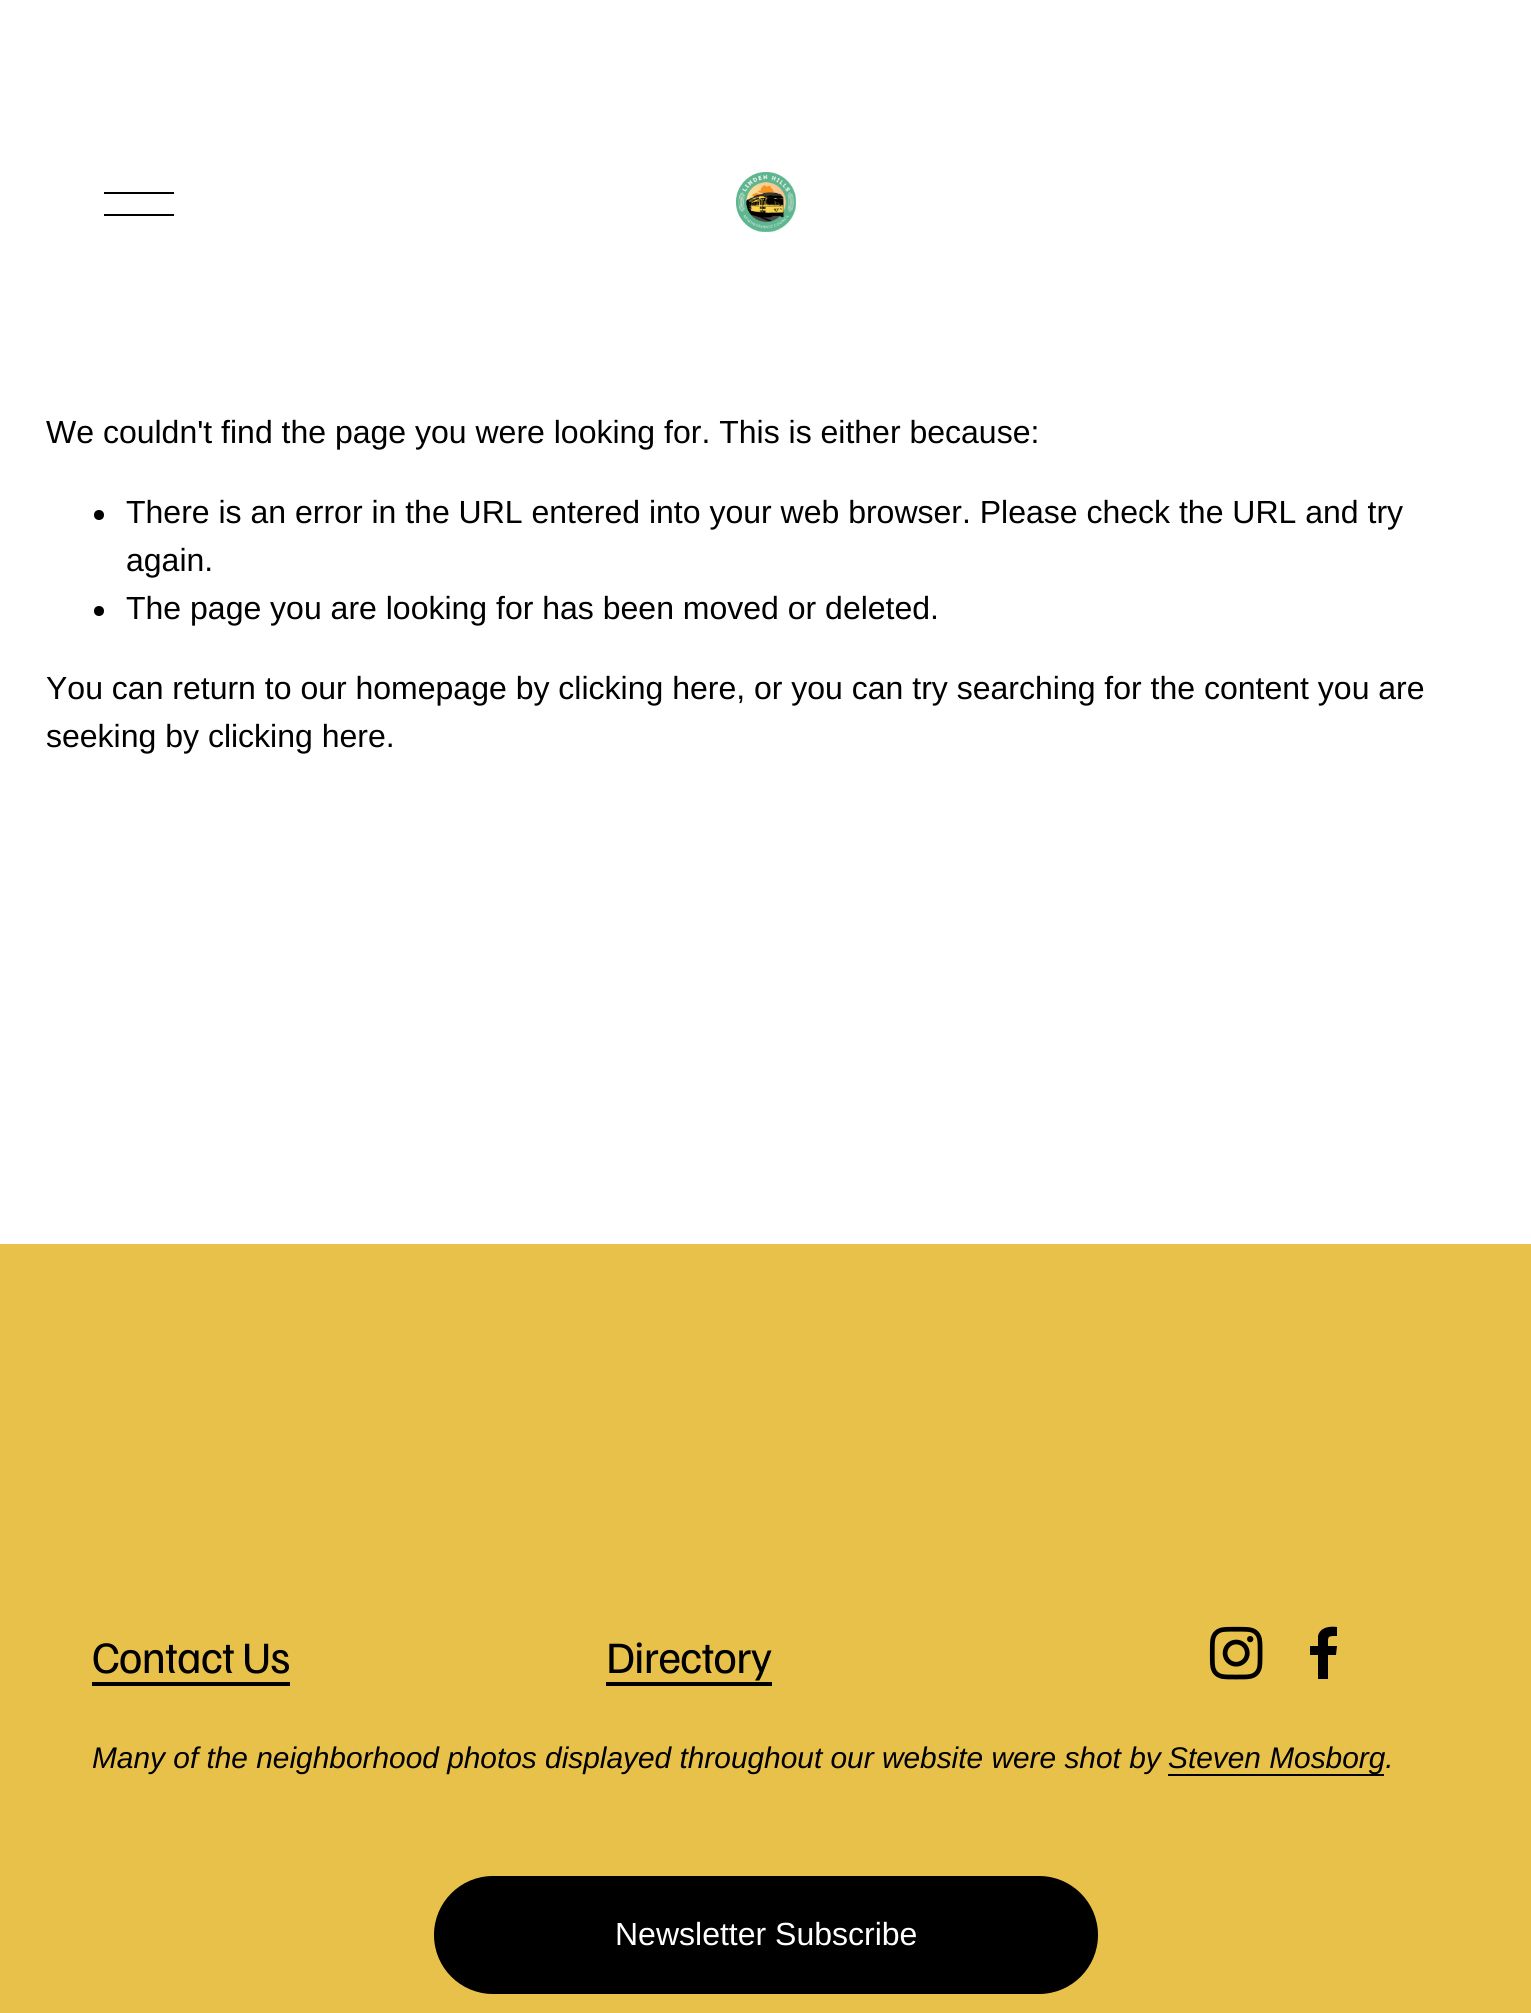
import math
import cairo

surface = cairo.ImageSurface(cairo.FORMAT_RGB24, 1531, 2013)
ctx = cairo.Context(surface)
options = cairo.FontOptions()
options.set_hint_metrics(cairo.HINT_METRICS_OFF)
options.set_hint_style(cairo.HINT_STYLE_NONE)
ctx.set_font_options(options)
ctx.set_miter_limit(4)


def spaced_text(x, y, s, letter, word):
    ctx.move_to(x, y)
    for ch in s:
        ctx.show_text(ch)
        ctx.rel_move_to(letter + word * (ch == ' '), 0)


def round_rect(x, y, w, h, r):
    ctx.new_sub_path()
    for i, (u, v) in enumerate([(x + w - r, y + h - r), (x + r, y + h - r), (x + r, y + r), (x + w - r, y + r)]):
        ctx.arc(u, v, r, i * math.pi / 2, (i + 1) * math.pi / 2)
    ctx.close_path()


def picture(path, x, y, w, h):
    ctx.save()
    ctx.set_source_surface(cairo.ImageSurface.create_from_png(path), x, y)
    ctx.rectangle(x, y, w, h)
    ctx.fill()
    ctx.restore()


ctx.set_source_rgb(1, 1, 1)
ctx.paint()
ctx.set_source_rgb(0, 0, 0)
ctx.rectangle(104, 192, 70, 2)
ctx.fill()
ctx.rectangle(104, 214, 70, 2)
ctx.fill()
picture("img1.png", 736, 172, 60, 60)
ctx.select_font_face("Arimo")
ctx.set_font_size(32)
ctx.move_to(46, 443)
ctx.show_text("We couldn't find the page you were looking for. This is either because:")
ctx.new_path()
ctx.arc(99, 515, 5, 0, 2 * math.pi)
ctx.fill()
ctx.move_to(126, 523)
ctx.show_text("There is an error in the URL entered into your web browser. Please check the URL and try")
ctx.move_to(126, 571)
ctx.show_text("again.")
ctx.new_path()
ctx.arc(99, 611, 5, 0, 2 * math.pi)
ctx.fill()
ctx.move_to(126, 619)
ctx.show_text("The page you are looking for has been moved or deleted.")
ctx.move_to(46, 699)
ctx.show_text("You can return to our homepage by clicking here, or you can try searching for the content you are")
ctx.move_to(46, 747)
ctx.show_text("seeking by clicking here.")
ctx.set_source_rgb(0.906, 0.757, 0.29)
ctx.rectangle(0, 1244, 1531, 769)
ctx.fill()
ctx.select_font_face("Familjen Grotesk")
ctx.set_font_size(45)
ctx.set_source_rgb(0, 0, 0)
spaced_text(92, 1673, "Contact Us", -1, 0)
ctx.rectangle(92, 1682, 198, 4)
ctx.fill()
spaced_text(606, 1673, "Directory", -1, 0)
ctx.rectangle(606, 1682, 166, 4)
ctx.fill()
picture("img2.png", 1209, 1626, 54, 54)
ctx.new_path()
ctx.move_to(1328, 1679)
ctx.line_to(1328, 1655)
ctx.line_to(1336, 1655)
ctx.line_to(1337, 1646)
ctx.line_to(1328, 1646)
ctx.curve_to(1328, 1636, 1327, 1636, 1337, 1636)
ctx.line_to(1337, 1627)
ctx.curve_to(1330, 1626, 1320, 1627, 1318, 1636)
ctx.line_to(1318, 1646)
ctx.line_to(1310, 1646)
ctx.line_to(1310, 1655)
ctx.line_to(1318, 1655)
ctx.line_to(1318, 1679)
ctx.close_path()
ctx.fill()
ctx.select_font_face("Arimo", cairo.FONT_SLANT_ITALIC)
ctx.set_font_size(29.85)
ctx.move_to(92, 1768)
ctx.show_text("Many of the neighborhood photos displayed throughout our website were shot by")
ctx.rectangle(1168, 1774, 216, 2)
ctx.fill()
ctx.move_to(1168, 1768)
ctx.show_text("Steven Mosborg.")
round_rect(434, 1876, 664, 118, 59)
ctx.fill()
ctx.select_font_face("Arimo")
ctx.set_font_size(32)
ctx.set_source_rgb(1, 1, 1)
ctx.move_to(615, 1945)
ctx.show_text("Newsletter Subscribe")
surface.write_to_png("page.png")
